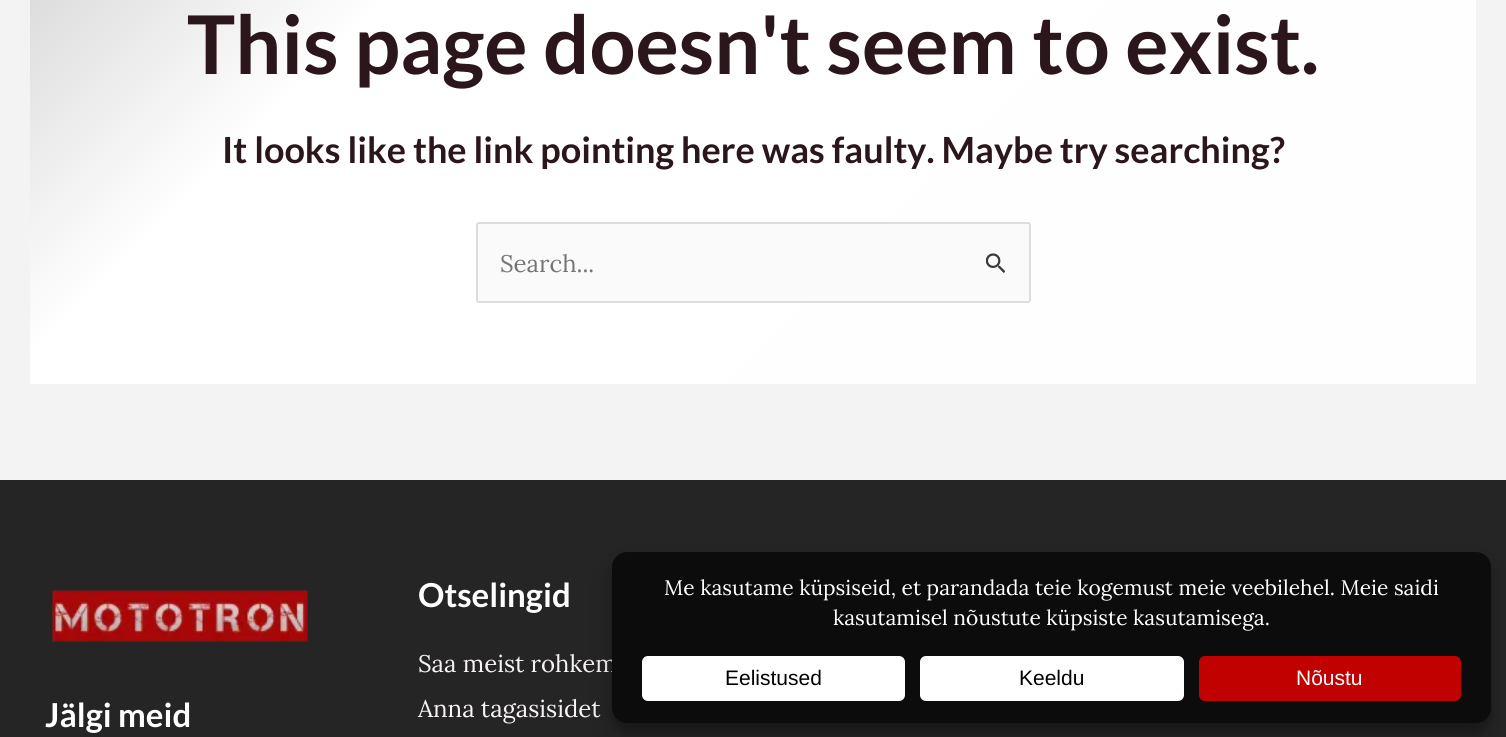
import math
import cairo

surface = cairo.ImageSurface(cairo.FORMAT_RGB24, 1506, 737)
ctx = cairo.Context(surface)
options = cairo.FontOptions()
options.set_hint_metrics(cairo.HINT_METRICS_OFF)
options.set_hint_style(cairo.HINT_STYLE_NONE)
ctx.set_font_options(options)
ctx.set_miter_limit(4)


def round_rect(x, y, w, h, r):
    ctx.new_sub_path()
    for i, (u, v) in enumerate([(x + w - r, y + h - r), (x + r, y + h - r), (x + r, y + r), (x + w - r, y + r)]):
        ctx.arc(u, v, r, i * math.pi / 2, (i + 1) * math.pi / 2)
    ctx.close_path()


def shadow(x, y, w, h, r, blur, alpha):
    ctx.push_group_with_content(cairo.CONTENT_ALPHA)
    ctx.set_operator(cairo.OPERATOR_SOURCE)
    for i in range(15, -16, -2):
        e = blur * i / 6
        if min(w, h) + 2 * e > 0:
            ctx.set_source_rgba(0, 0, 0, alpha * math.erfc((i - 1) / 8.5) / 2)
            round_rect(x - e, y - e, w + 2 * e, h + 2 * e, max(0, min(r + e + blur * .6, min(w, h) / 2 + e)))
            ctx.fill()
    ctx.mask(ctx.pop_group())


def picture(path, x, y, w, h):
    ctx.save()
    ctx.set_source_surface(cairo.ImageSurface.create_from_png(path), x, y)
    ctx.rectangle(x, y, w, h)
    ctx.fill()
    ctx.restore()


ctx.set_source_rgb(0.953, 0.953, 0.953)
ctx.paint()
gradient = cairo.LinearGradient(275, -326, 1231, 629)
gradient.add_color_stop_rgba(0.02, 0.851, 0.851, 0.851, 1)
gradient.add_color_stop_rgba(0.23, 1, 1, 1, 1)
gradient.add_color_stop_rgba(1, 0.996, 0.996, 0.996, 1)
ctx.set_source(gradient)
ctx.rectangle(30, 0, 1446, 384)
ctx.fill()
ctx.select_font_face("Lato", cairo.FONT_SLANT_NORMAL, cairo.FONT_WEIGHT_BOLD)
ctx.set_font_size(81)
ctx.set_source_rgb(0.169, 0.086, 0.106)
ctx.move_to(187, 74)
ctx.show_text("This page doesn't seem to exist.")
ctx.set_font_size(36)
ctx.move_to(222, 163)
ctx.show_text("It looks like the link pointing here was faulty. Maybe try searching?")
ctx.set_source_rgb(0.98, 0.98, 0.98)
round_rect(477, 223, 553, 79, 2)
ctx.fill_preserve()
ctx.set_source_rgb(0.867, 0.867, 0.867)
ctx.stroke()
ctx.select_font_face("Lora")
ctx.set_font_size(24)
ctx.set_source_rgb(0.459, 0.459, 0.459)
ctx.move_to(500, 272)
ctx.show_text("Search...")
picture("img1.png", 986, 253, 19, 20)
ctx.set_source_rgb(0.145, 0.145, 0.145)
ctx.rectangle(0, 480, 1506, 257)
ctx.fill()
picture("img2.png", 52, 590, 256, 52)
ctx.select_font_face("Lato", cairo.FONT_SLANT_NORMAL, cairo.FONT_WEIGHT_BOLD)
ctx.set_font_size(33)
ctx.set_source_rgb(1, 1, 1)
ctx.move_to(45, 727)
ctx.show_text("Jälgi meid")
ctx.move_to(418, 607)
ctx.show_text("Otselingid")
ctx.select_font_face("Lora")
ctx.set_font_size(24)
ctx.set_source_rgb(0.969, 0.953, 0.961)
ctx.move_to(418, 672)
ctx.show_text("Saa meist rohkem")
ctx.move_to(418, 717)
ctx.show_text("Anna tagasisidet")
ctx.set_source_rgb(0, 0, 0)
shadow(612, 561, 879, 171, 15, 4.5, 0.23)
shadow(612, 567, 879, 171, 15, 15, 0.19)
ctx.set_source_rgb(0.047, 0.047, 0.047)
round_rect(612, 552, 879, 171, 15)
ctx.fill()
ctx.set_font_size(21)
ctx.set_source_rgb(1, 1, 1)
ctx.move_to(664, 595)
ctx.show_text("Me kasutame küpsiseid, et parandada teie kogemust meie veebilehel. Meie saidi")
ctx.move_to(833, 625)
ctx.show_text("kasutamisel nõustute küpsiste kasutamisega.")
round_rect(642, 656, 263, 45, 6)
ctx.fill()
ctx.select_font_face("Liberation Sans")
ctx.set_source_rgb(0, 0, 0)
ctx.move_to(725, 685)
ctx.show_text("Eelistused")
ctx.set_source_rgb(1, 1, 1)
round_rect(920, 656, 264, 45, 6)
ctx.fill()
ctx.set_source_rgb(0, 0, 0)
ctx.move_to(1019, 685)
ctx.show_text("Keeldu")
ctx.set_source_rgb(0.757, 0, 0)
round_rect(1199, 656, 262, 45, 6)
ctx.fill()
ctx.set_source_rgb(1, 1, 1)
ctx.move_to(1296, 685)
ctx.show_text("Nõustu")
surface.write_to_png("page.png")
